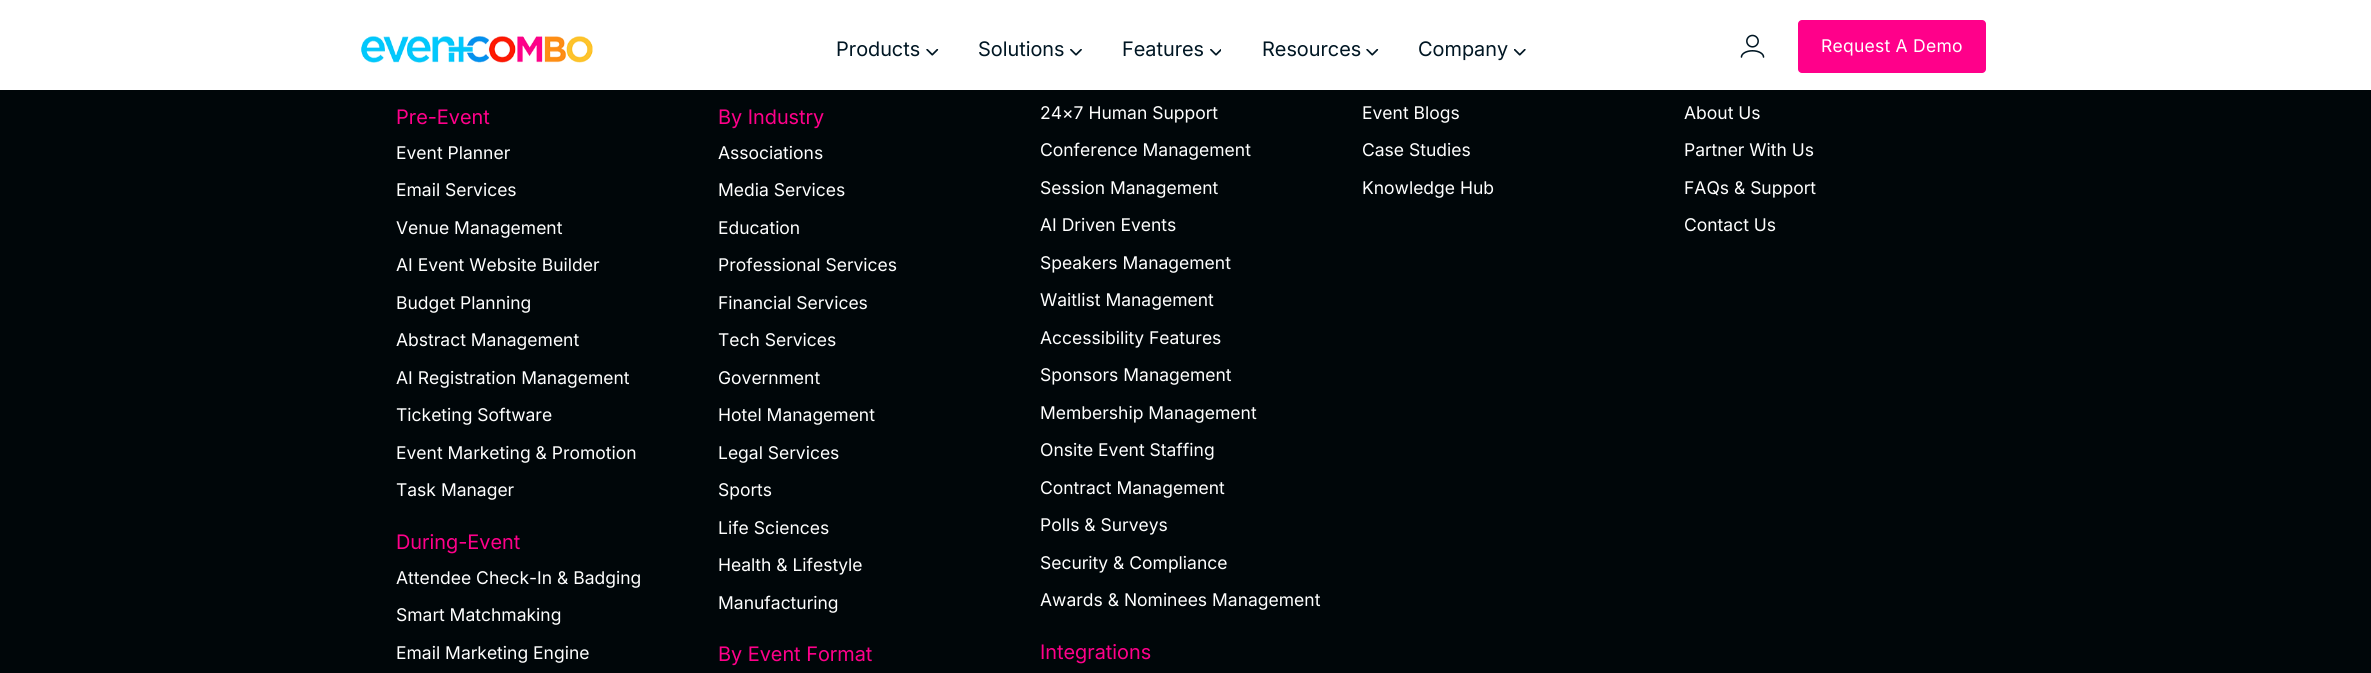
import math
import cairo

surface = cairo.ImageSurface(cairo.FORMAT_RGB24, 2371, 673)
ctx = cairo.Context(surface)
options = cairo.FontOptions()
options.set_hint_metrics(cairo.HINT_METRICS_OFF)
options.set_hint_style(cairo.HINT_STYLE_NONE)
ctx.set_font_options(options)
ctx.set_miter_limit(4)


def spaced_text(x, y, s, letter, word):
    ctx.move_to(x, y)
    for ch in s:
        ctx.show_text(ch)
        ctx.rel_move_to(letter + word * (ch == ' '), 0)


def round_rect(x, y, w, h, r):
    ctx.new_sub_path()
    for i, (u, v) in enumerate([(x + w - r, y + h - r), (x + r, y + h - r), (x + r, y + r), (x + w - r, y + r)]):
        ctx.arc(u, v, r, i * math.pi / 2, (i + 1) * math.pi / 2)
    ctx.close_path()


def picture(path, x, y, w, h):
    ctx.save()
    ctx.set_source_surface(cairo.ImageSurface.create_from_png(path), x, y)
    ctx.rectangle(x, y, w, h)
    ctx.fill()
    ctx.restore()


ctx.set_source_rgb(0, 0.027, 0.039)
ctx.paint()
ctx.set_source_rgb(1, 1, 1)
ctx.rectangle(0, 0, 2371, 90)
ctx.fill()
picture("img1.png", 361, 36, 232, 27)
ctx.select_font_face("Inter")
ctx.set_font_size(20)
ctx.set_source_rgb(0, 0.086, 0.137)
ctx.move_to(836, 56)
ctx.show_text("Products")
picture("img2.png", 926, 49, 13, 7)
ctx.move_to(978, 56)
ctx.show_text("Solutions")
picture("img3.png", 1070, 49, 12, 7)
ctx.move_to(1122, 56)
ctx.show_text("Features")
picture("img4.png", 1210, 49, 11, 7)
ctx.move_to(1262, 56)
ctx.show_text("Resources")
picture("img2.png", 1366, 49, 13, 7)
ctx.move_to(1418, 56)
ctx.show_text("Company")
picture("img5.png", 1514, 49, 12, 7)
picture("img6.png", 1740, 34, 25, 24)
ctx.set_source_rgb(1, 0, 0.541)
round_rect(1798, 20, 188, 53, 4)
ctx.fill()
ctx.select_font_face("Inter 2")
ctx.set_font_size(17.5)
ctx.set_source_rgb(1, 1, 1)
spaced_text(1821, 52, "Request A Demo", 0.25, 0)
ctx.select_font_face("Inter")
ctx.set_font_size(20)
ctx.set_source_rgb(1, 0, 0.541)
ctx.move_to(396, 124)
ctx.show_text("Pre-Event")
ctx.select_font_face("Inter 2")
ctx.set_font_size(17.5)
ctx.set_source_rgb(1, 1, 1)
ctx.move_to(396, 159)
ctx.show_text("Event Planner")
ctx.move_to(396, 196)
ctx.show_text("Email Services")
ctx.move_to(396, 234)
ctx.show_text("Venue Management")
ctx.move_to(396, 271)
ctx.show_text("AI Event Website Builder")
ctx.move_to(396, 309)
ctx.show_text("Budget Planning")
ctx.move_to(396, 346)
ctx.show_text("Abstract Management")
ctx.move_to(396, 384)
ctx.show_text("AI Registration Management")
ctx.move_to(396, 421)
ctx.show_text("Ticketing Software")
ctx.move_to(396, 459)
ctx.show_text("Event Marketing & Promotion")
ctx.move_to(396, 496)
ctx.show_text("Task Manager")
ctx.select_font_face("Inter")
ctx.set_font_size(20)
ctx.set_source_rgb(1, 0, 0.541)
ctx.move_to(396, 549)
ctx.show_text("During-Event")
ctx.select_font_face("Inter 2")
ctx.set_font_size(17.5)
ctx.set_source_rgb(1, 1, 1)
ctx.move_to(396, 584)
ctx.show_text("Attendee Check-In & Badging")
ctx.move_to(396, 621)
ctx.show_text("Smart Matchmaking")
ctx.move_to(396, 659)
ctx.show_text("Email Marketing Engine")
ctx.select_font_face("Inter")
ctx.set_font_size(20)
ctx.set_source_rgb(1, 0, 0.541)
ctx.move_to(718, 124)
ctx.show_text("By Industry")
ctx.select_font_face("Inter 2")
ctx.set_font_size(17.5)
ctx.set_source_rgb(1, 1, 1)
ctx.move_to(718, 159)
ctx.show_text("Associations")
ctx.move_to(718, 196)
ctx.show_text("Media Services")
ctx.move_to(718, 234)
ctx.show_text("Education")
ctx.move_to(718, 271)
ctx.show_text("Professional Services")
ctx.move_to(718, 309)
ctx.show_text("Financial Services")
ctx.move_to(718, 346)
ctx.show_text("Tech Services")
ctx.move_to(718, 384)
ctx.show_text("Government")
ctx.move_to(718, 421)
ctx.show_text("Hotel Management")
ctx.move_to(718, 459)
ctx.show_text("Legal Services")
ctx.move_to(718, 496)
ctx.show_text("Sports")
ctx.move_to(718, 534)
ctx.show_text("Life Sciences")
ctx.move_to(718, 571)
ctx.show_text("Health & Lifestyle")
ctx.move_to(718, 609)
ctx.show_text("Manufacturing")
ctx.select_font_face("Inter")
ctx.set_font_size(20)
ctx.set_source_rgb(1, 0, 0.541)
ctx.move_to(718, 661)
ctx.show_text("By Event Format")
ctx.select_font_face("Inter 2")
ctx.set_font_size(17.5)
ctx.set_source_rgb(1, 1, 1)
ctx.move_to(1040, 119)
ctx.show_text("24×7 Human Support")
ctx.move_to(1040, 156)
ctx.show_text("Conference Management")
ctx.move_to(1040, 194)
ctx.show_text("Session Management")
ctx.move_to(1040, 231)
ctx.show_text("AI Driven Events")
ctx.move_to(1040, 269)
ctx.show_text("Speakers Management")
ctx.move_to(1040, 306)
ctx.show_text("Waitlist Management")
ctx.move_to(1040, 344)
ctx.show_text("Accessibility Features")
ctx.move_to(1040, 381)
ctx.show_text("Sponsors Management")
ctx.move_to(1040, 419)
ctx.show_text("Membership Management")
ctx.move_to(1040, 456)
ctx.show_text("Onsite Event Staffing")
ctx.move_to(1040, 494)
ctx.show_text("Contract Management")
ctx.move_to(1040, 531)
ctx.show_text("Polls & Surveys")
ctx.move_to(1040, 569)
ctx.show_text("Security & Compliance")
ctx.move_to(1040, 606)
ctx.show_text("Awards & Nominees Management")
ctx.select_font_face("Inter")
ctx.set_font_size(20)
ctx.set_source_rgb(1, 0, 0.541)
ctx.move_to(1040, 659)
ctx.show_text("Integrations")
ctx.select_font_face("Inter 2")
ctx.set_font_size(17.5)
ctx.set_source_rgb(1, 1, 1)
ctx.move_to(1362, 119)
ctx.show_text("Event Blogs")
ctx.move_to(1362, 156)
ctx.show_text("Case Studies")
ctx.move_to(1362, 194)
ctx.show_text("Knowledge Hub")
ctx.move_to(1684, 119)
ctx.show_text("About Us")
ctx.move_to(1684, 156)
ctx.show_text("Partner With Us")
ctx.move_to(1684, 194)
ctx.show_text("FAQs & Support")
ctx.move_to(1684, 231)
ctx.show_text("Contact Us")
surface.write_to_png("page.png")
